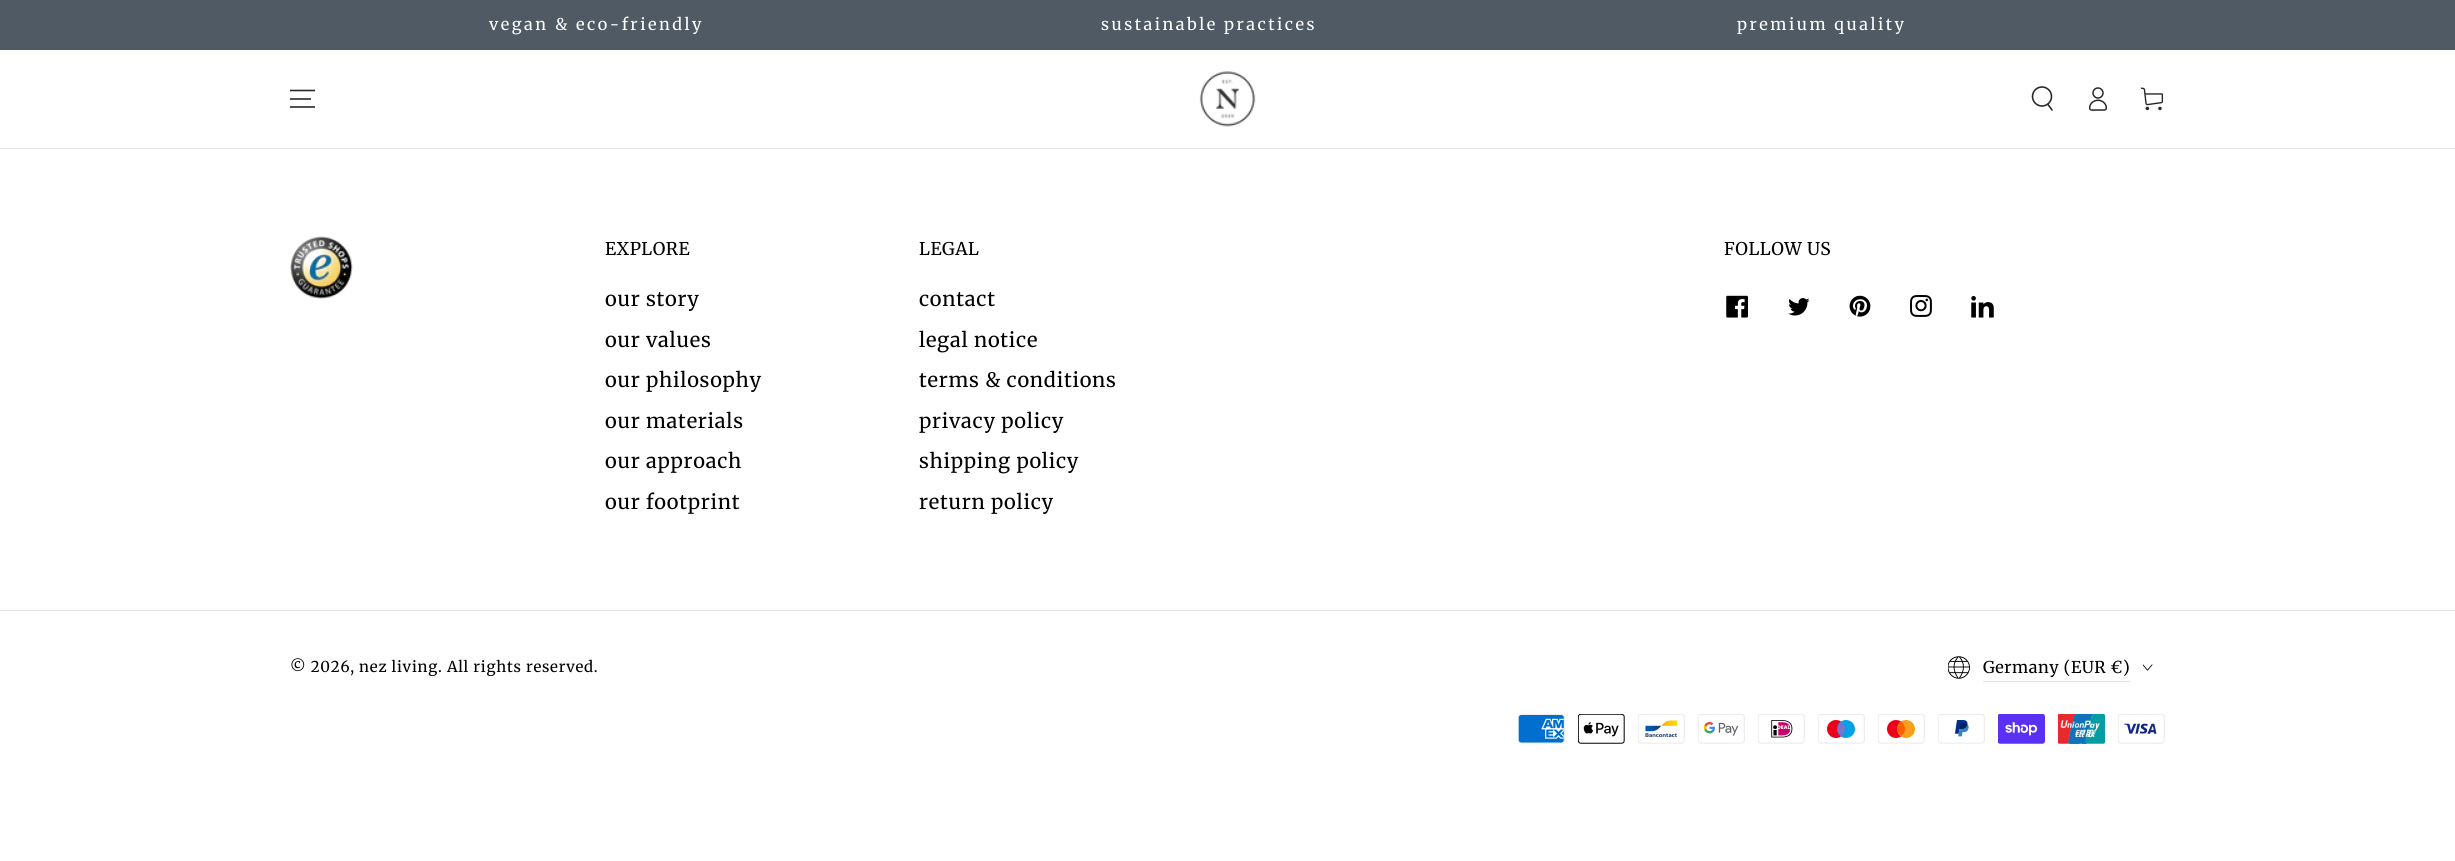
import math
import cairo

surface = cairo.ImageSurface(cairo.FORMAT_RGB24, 2455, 861)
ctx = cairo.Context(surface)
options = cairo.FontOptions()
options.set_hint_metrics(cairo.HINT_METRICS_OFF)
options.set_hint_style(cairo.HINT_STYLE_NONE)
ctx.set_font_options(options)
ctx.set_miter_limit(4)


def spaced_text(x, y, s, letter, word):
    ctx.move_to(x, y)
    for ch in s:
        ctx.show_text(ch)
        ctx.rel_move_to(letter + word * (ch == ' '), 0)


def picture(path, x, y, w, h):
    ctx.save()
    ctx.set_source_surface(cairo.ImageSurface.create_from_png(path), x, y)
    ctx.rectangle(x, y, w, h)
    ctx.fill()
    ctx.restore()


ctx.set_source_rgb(1, 1, 1)
ctx.paint()
ctx.set_source_rgb(0.31, 0.353, 0.392)
ctx.rectangle(0, 0, 2455, 50)
ctx.fill()
ctx.select_font_face("Merriweather")
ctx.set_font_size(16.25)
ctx.set_source_rgb(1, 1, 1)
spaced_text(489, 30, "vegan & eco-friendly", 2.5, 0)
spaced_text(1101, 30, "sustainable practices", 2.5, 0)
spaced_text(1737, 30, "premium quality", 2.5, 0)
ctx.new_path()
ctx.move_to(290, 107)
ctx.line_to(315, 107)
ctx.move_to(290, 99)
ctx.line_to(311, 99)
ctx.move_to(290, 90.5)
ctx.line_to(315, 90.5)
ctx.set_source_rgb(0.157, 0.157, 0.157)
ctx.set_line_width(1.6)
ctx.stroke()
picture("img1.png", 1199, 71, 57, 56)
ctx.arc(2042, 96.5, 9.5, 0, 2 * math.pi)
ctx.stroke()
ctx.new_path()
ctx.move_to(2048, 104.5)
ctx.line_to(2052, 110)
ctx.set_line_cap(cairo.LINE_CAP_ROUND)
ctx.stroke()
picture("img2.png", 2088, 87, 19, 24)
picture("img3.png", 2141, 87, 23, 24)
ctx.set_source_rgb(0.894, 0.894, 0.894)
ctx.rectangle(0, 148, 2455, 1)
ctx.fill()
picture("img4.png", 290, 236, 63, 63)
ctx.set_font_size(17.5)
ctx.set_source_rgb(0, 0, 0)
spaced_text(605, 255, "EXPLORE", 0.5, 0)
ctx.set_font_size(20)
spaced_text(605, 306, "our story", 0.75, 0)
spaced_text(605, 347, "our values", 0.75, 0)
spaced_text(605, 387, "our philosophy", 0.75, 0)
spaced_text(605, 428, "our materials", 0.75, 0)
spaced_text(605, 468, "our approach", 0.75, 0)
spaced_text(605, 509, "our footprint", 0.75, 0)
ctx.set_font_size(17.5)
spaced_text(919, 255, "LEGAL", 0.5, 0)
ctx.set_font_size(20)
spaced_text(919, 306, "contact", 0.75, 0)
spaced_text(919, 347, "legal notice", 0.75, 0)
spaced_text(919, 387, "terms & conditions", 0.75, 0)
spaced_text(919, 428, "privacy policy", 0.75, 0)
spaced_text(919, 468, "shipping policy", 0.75, 0)
spaced_text(919, 509, "return policy", 0.75, 0)
ctx.set_font_size(17.5)
spaced_text(1724, 255, "FOLLOW US", 0.5, 0)
picture("img5.png", 1726, 295, 22, 23)
picture("img6.png", 1788, 298, 22, 18)
picture("img7.png", 1849, 295, 22, 22)
picture("img8.png", 1910, 295, 22, 22)
picture("img9.png", 1971, 296, 23, 22)
ctx.set_source_rgb(0.894, 0.894, 0.894)
ctx.rectangle(0, 610, 2455, 1)
ctx.fill()
ctx.set_font_size(15)
ctx.set_source_rgb(0, 0, 0)
spaced_text(290, 672, "© 2026, nez living. All rights reserved.", 0.75, 0)
picture("img10.png", 1948, 656, 22, 23)
ctx.set_source_rgb(0.894, 0.894, 0.894)
ctx.rectangle(1983, 681, 147, 1)
ctx.fill()
ctx.set_font_size(16.25)
ctx.set_source_rgb(0, 0, 0)
spaced_text(1983, 673, "Germany (EUR €)", 0.5, 0)
picture("img11.png", 2143, 664, 10, 7)
picture("img12.png", 1518, 714, 47, 30)
picture("img13.png", 1578, 714, 47, 30)
picture("img14.png", 1638, 714, 47, 30)
picture("img15.png", 1698, 714, 47, 30)
picture("img16.png", 1758, 714, 47, 30)
picture("img17.png", 1818, 714, 47, 30)
picture("img18.png", 1878, 714, 47, 30)
picture("img19.png", 1938, 714, 47, 30)
picture("img20.png", 1998, 714, 47, 30)
picture("img21.png", 2058, 714, 47, 30)
picture("img22.png", 2118, 714, 47, 30)
surface.write_to_png("page.png")
